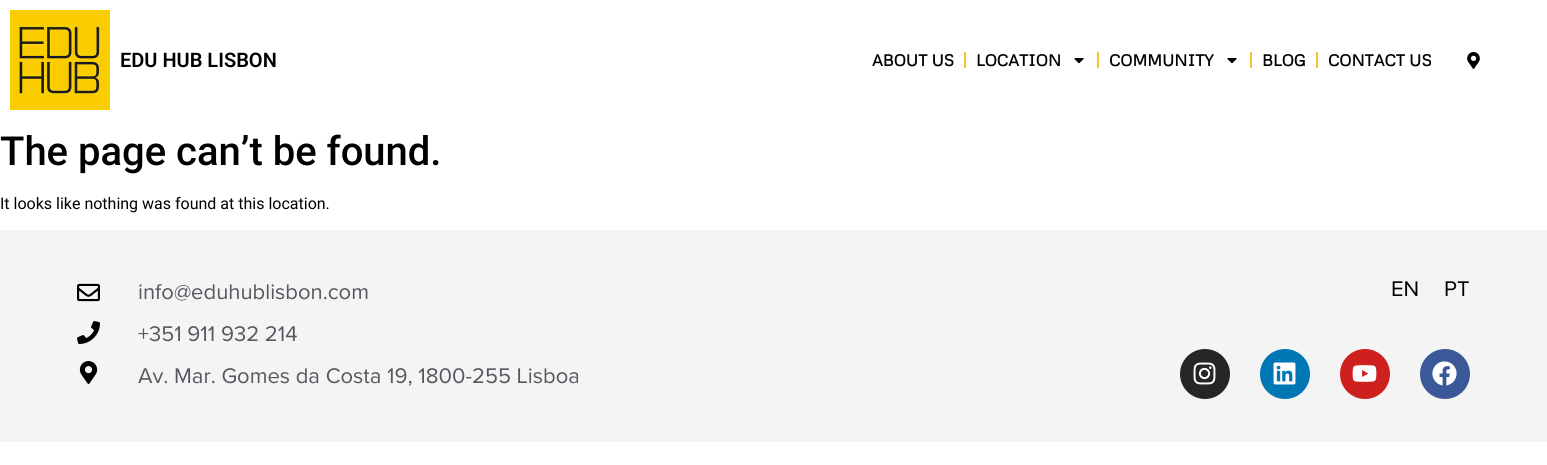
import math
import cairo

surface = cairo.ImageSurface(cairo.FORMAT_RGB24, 1547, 465)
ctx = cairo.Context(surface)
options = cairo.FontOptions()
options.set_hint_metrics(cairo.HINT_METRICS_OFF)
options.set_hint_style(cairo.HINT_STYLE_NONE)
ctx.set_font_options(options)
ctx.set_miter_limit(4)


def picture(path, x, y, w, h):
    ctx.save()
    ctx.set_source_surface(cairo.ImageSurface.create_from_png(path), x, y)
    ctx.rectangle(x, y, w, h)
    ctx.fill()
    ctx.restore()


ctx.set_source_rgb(1, 1, 1)
ctx.paint()
picture("img1.png", 10, 10, 100, 100)
ctx.select_font_face("Roboto SemiBold")
ctx.set_font_size(20)
ctx.set_source_rgb(0, 0, 0)
ctx.move_to(120, 67)
ctx.show_text("EDU HUB LISBON")
ctx.select_font_face("Metrophobic", cairo.FONT_SLANT_NORMAL, cairo.FONT_WEIGHT_BOLD)
ctx.set_font_size(16)
ctx.move_to(872, 66)
ctx.show_text("ABOUT US")
ctx.set_source_rgb(0.957, 0.776, 0.18)
ctx.rectangle(964, 52, 2, 16)
ctx.fill()
ctx.set_source_rgb(0, 0, 0)
ctx.move_to(976, 66)
ctx.show_text("LOCATION")
picture("img2.png", 1074, 58, 10, 6)
ctx.set_source_rgb(0.957, 0.776, 0.18)
ctx.rectangle(1097, 52, 2, 16)
ctx.fill()
ctx.set_source_rgb(0, 0, 0)
ctx.move_to(1109, 66)
ctx.show_text("COMMUNITY")
picture("img2.png", 1227, 58, 10, 6)
ctx.set_source_rgb(0.957, 0.776, 0.18)
ctx.rectangle(1250, 52, 2, 16)
ctx.fill()
ctx.set_source_rgb(0, 0, 0)
ctx.move_to(1262, 66)
ctx.show_text("BLOG")
ctx.set_source_rgb(0.957, 0.776, 0.18)
ctx.rectangle(1316, 52, 2, 16)
ctx.fill()
ctx.set_source_rgb(0, 0, 0)
ctx.move_to(1328, 66)
ctx.show_text("CONTACT US")
picture("img3.png", 1467, 52, 13, 17)
ctx.select_font_face("Roboto Medium")
ctx.set_font_size(40)
ctx.move_to(0, 165)
ctx.show_text("The page can’t be found.")
ctx.select_font_face("Roboto")
ctx.set_font_size(16)
ctx.move_to(0, 209)
ctx.show_text("It looks like nothing was found at this location.")
ctx.set_source_rgb(0.957, 0.957, 0.957)
ctx.rectangle(0, 230, 1547, 212)
ctx.fill()
picture("img4.png", 77, 283, 23, 19)
picture("img5.png", 77, 321, 23, 23)
picture("img6.png", 79, 361, 19, 23)
ctx.select_font_face("Proxima Nova")
ctx.set_font_size(22)
ctx.set_source_rgb(0.329, 0.349, 0.373)
ctx.move_to(138, 299)
ctx.show_text("info@eduhublisbon.com")
ctx.move_to(138, 341)
ctx.show_text("+351 911 932 214")
ctx.move_to(138, 383)
ctx.show_text("Av. Mar. Gomes da Costa 19, 1800-255 Lisboa")
ctx.set_source_rgb(0, 0, 0)
ctx.move_to(1391, 296)
ctx.show_text("EN")
ctx.move_to(1444, 296)
ctx.show_text("PT")
ctx.set_source_rgb(0.149, 0.149, 0.149)
ctx.new_path()
ctx.arc(1205, 374, 25, 0, 2 * math.pi)
ctx.fill()
picture("img7.png", 1193, 362, 23, 23)
ctx.set_source_rgb(0, 0.467, 0.71)
ctx.arc(1285, 374, 25, 0, 2 * math.pi)
ctx.fill()
picture("img8.png", 1273, 362, 23, 23)
ctx.set_source_rgb(0.804, 0.125, 0.122)
ctx.arc(1365, 374, 25, 0, 2 * math.pi)
ctx.fill()
picture("img9.png", 1352, 365, 25, 17)
ctx.set_source_rgb(0.231, 0.349, 0.596)
ctx.arc(1445, 374, 25, 0, 2 * math.pi)
ctx.fill()
picture("img10.png", 1432, 361, 25, 25)
surface.write_to_png("page.png")
